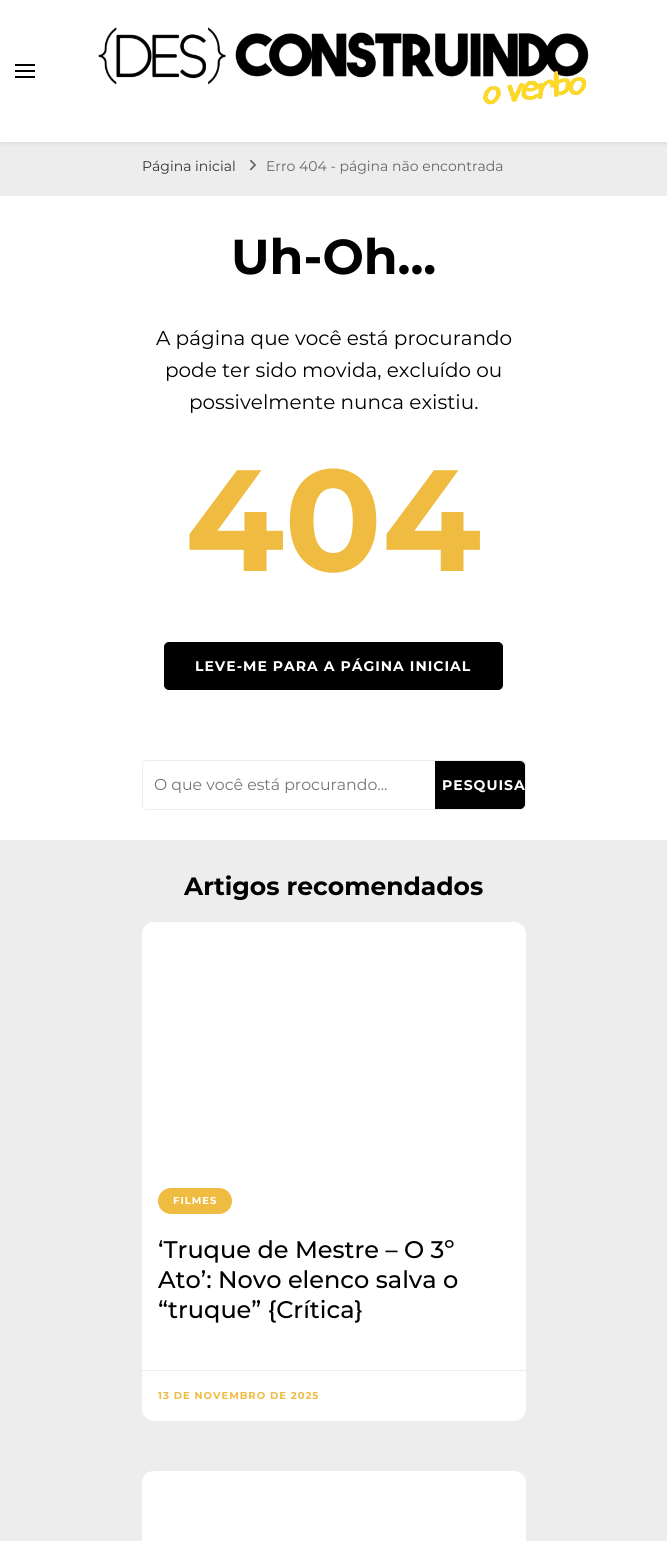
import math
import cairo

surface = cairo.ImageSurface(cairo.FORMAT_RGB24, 667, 1541)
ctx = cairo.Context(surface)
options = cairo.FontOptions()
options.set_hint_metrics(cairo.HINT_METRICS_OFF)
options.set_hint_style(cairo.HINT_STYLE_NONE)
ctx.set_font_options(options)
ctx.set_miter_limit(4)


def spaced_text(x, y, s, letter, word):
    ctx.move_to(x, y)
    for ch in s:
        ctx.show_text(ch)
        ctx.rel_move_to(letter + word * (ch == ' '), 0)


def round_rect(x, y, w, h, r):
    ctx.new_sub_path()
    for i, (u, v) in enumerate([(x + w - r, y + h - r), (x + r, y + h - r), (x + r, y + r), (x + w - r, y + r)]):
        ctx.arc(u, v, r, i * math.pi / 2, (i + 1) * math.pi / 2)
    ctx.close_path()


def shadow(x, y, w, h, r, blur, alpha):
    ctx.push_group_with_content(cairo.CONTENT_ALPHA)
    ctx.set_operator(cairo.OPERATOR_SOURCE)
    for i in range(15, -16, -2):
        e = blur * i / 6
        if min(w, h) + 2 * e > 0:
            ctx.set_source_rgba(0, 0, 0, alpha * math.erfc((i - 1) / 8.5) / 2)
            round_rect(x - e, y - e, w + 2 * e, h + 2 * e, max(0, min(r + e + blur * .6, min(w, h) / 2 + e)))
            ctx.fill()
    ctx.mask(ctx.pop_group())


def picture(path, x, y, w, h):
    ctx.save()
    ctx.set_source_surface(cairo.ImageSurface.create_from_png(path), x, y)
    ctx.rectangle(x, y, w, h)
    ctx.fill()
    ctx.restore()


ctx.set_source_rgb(0.929, 0.929, 0.929)
ctx.paint()
ctx.set_source_rgb(0, 0, 0)
shadow(0, 1, 667, 142, 0, 2.5, 0.1)
ctx.set_source_rgb(1, 1, 1)
ctx.rectangle(0, 0, 667, 142)
ctx.fill()
ctx.set_source_rgb(0, 0, 0)
ctx.rectangle(15, 64, 20, 2)
ctx.fill()
ctx.rectangle(15, 70, 20, 2)
ctx.fill()
ctx.rectangle(15, 76, 20, 2)
ctx.fill()
picture("img1.png", 98, 27, 491, 78)
ctx.select_font_face("Montserrat")
ctx.set_font_size(14)
ctx.set_source_rgb(0.2, 0.2, 0.2)
ctx.move_to(142, 171)
ctx.show_text("Página inicial")
picture("img2.png", 249, 159, 7, 12)
ctx.set_source_rgb(0.4, 0.4, 0.4)
ctx.move_to(266, 171)
ctx.show_text("Erro 404 - página não encontrada")
ctx.set_source_rgb(1, 1, 1)
ctx.rectangle(0, 196, 667, 644)
ctx.fill()
ctx.select_font_face("Montserrat", cairo.FONT_SLANT_NORMAL, cairo.FONT_WEIGHT_BOLD)
ctx.set_font_size(49)
ctx.set_source_rgb(0, 0, 0)
ctx.move_to(231, 274)
ctx.show_text("Uh-Oh...")
ctx.select_font_face("Montserrat")
ctx.set_font_size(20)
ctx.move_to(156, 345)
ctx.show_text("A página que você está procurando")
ctx.move_to(165, 377)
ctx.show_text("pode ter sido movida, excluído ou")
ctx.move_to(189, 409)
ctx.show_text("possivelmente nunca existiu.")
ctx.select_font_face("Montserrat", cairo.FONT_SLANT_NORMAL, cairo.FONT_WEIGHT_BOLD)
ctx.set_font_size(144)
ctx.set_source_rgb(0.937, 0.733, 0.255)
ctx.move_to(185, 571)
ctx.show_text("404")
ctx.set_source_rgb(0, 0, 0)
round_rect(164.5, 642.5, 338, 47, 4.5)
ctx.fill_preserve()
ctx.set_line_width(1)
ctx.stroke()
ctx.set_font_size(14)
ctx.set_source_rgb(1, 1, 1)
spaced_text(195, 671, "LEVE-ME PARA A PÁGINA INICIAL", 1, 0)
round_rect(142.5, 760.5, 383, 49, 4.5)
ctx.set_source_rgb(0.922, 0.922, 0.922)
ctx.stroke()
ctx.select_font_face("Montserrat")
ctx.set_font_size(15.75)
ctx.set_source_rgb(0.459, 0.459, 0.459)
ctx.move_to(154, 790)
ctx.show_text("O que você está procurando...")
ctx.set_source_rgb(0, 0, 0)
ctx.new_path()
ctx.move_to(435.5, 761.5)
ctx.line_to(520, 761.5)
ctx.curve_to(522.5, 761.5, 524.5, 763.5, 524.5, 766)
ctx.line_to(524.5, 804)
ctx.curve_to(524.5, 806.5, 522.5, 808.5, 520, 808.5)
ctx.line_to(435.5, 808.5)
ctx.close_path()
ctx.fill_preserve()
ctx.stroke()
ctx.select_font_face("Montserrat", cairo.FONT_SLANT_NORMAL, cairo.FONT_WEIGHT_BOLD)
ctx.set_font_size(14)
ctx.set_source_rgb(1, 1, 1)
spaced_text(442, 790, "PESQUISA", 1, 0)
ctx.set_font_size(25)
ctx.set_source_rgb(0, 0, 0)
ctx.move_to(184, 895)
ctx.show_text("Artigos recomendados")
ctx.set_source_rgb(1, 1, 1)
round_rect(142, 922, 384, 499, 12)
ctx.fill()
ctx.set_source_rgb(0.937, 0.733, 0.255)
round_rect(158, 1188, 74, 26, 13)
ctx.fill()
ctx.set_font_size(10)
ctx.set_source_rgb(1, 1, 1)
spaced_text(173, 1204, "FILMES", 1, 0)
ctx.select_font_face("Montserrat Medium")
ctx.set_font_size(24)
ctx.set_source_rgb(0, 0, 0)
ctx.move_to(158, 1258)
ctx.show_text("‘Truque de Mestre – O 3º")
ctx.move_to(158, 1288)
ctx.show_text("Ato’: Novo elenco salva o")
ctx.move_to(158, 1318)
ctx.show_text("“truque” {Crítica}")
ctx.set_source_rgb(0.922, 0.922, 0.922)
ctx.rectangle(142, 1370, 384, 1)
ctx.fill()
ctx.select_font_face("Montserrat", cairo.FONT_SLANT_NORMAL, cairo.FONT_WEIGHT_BOLD)
ctx.set_font_size(10)
ctx.set_source_rgb(0.937, 0.733, 0.255)
spaced_text(158, 1399, "13 DE NOVEMBRO DE 2025", 1, 0)
ctx.set_source_rgb(1, 1, 1)
round_rect(142, 1471, 384, 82, 12)
ctx.fill()
surface.write_to_png("page.png")
